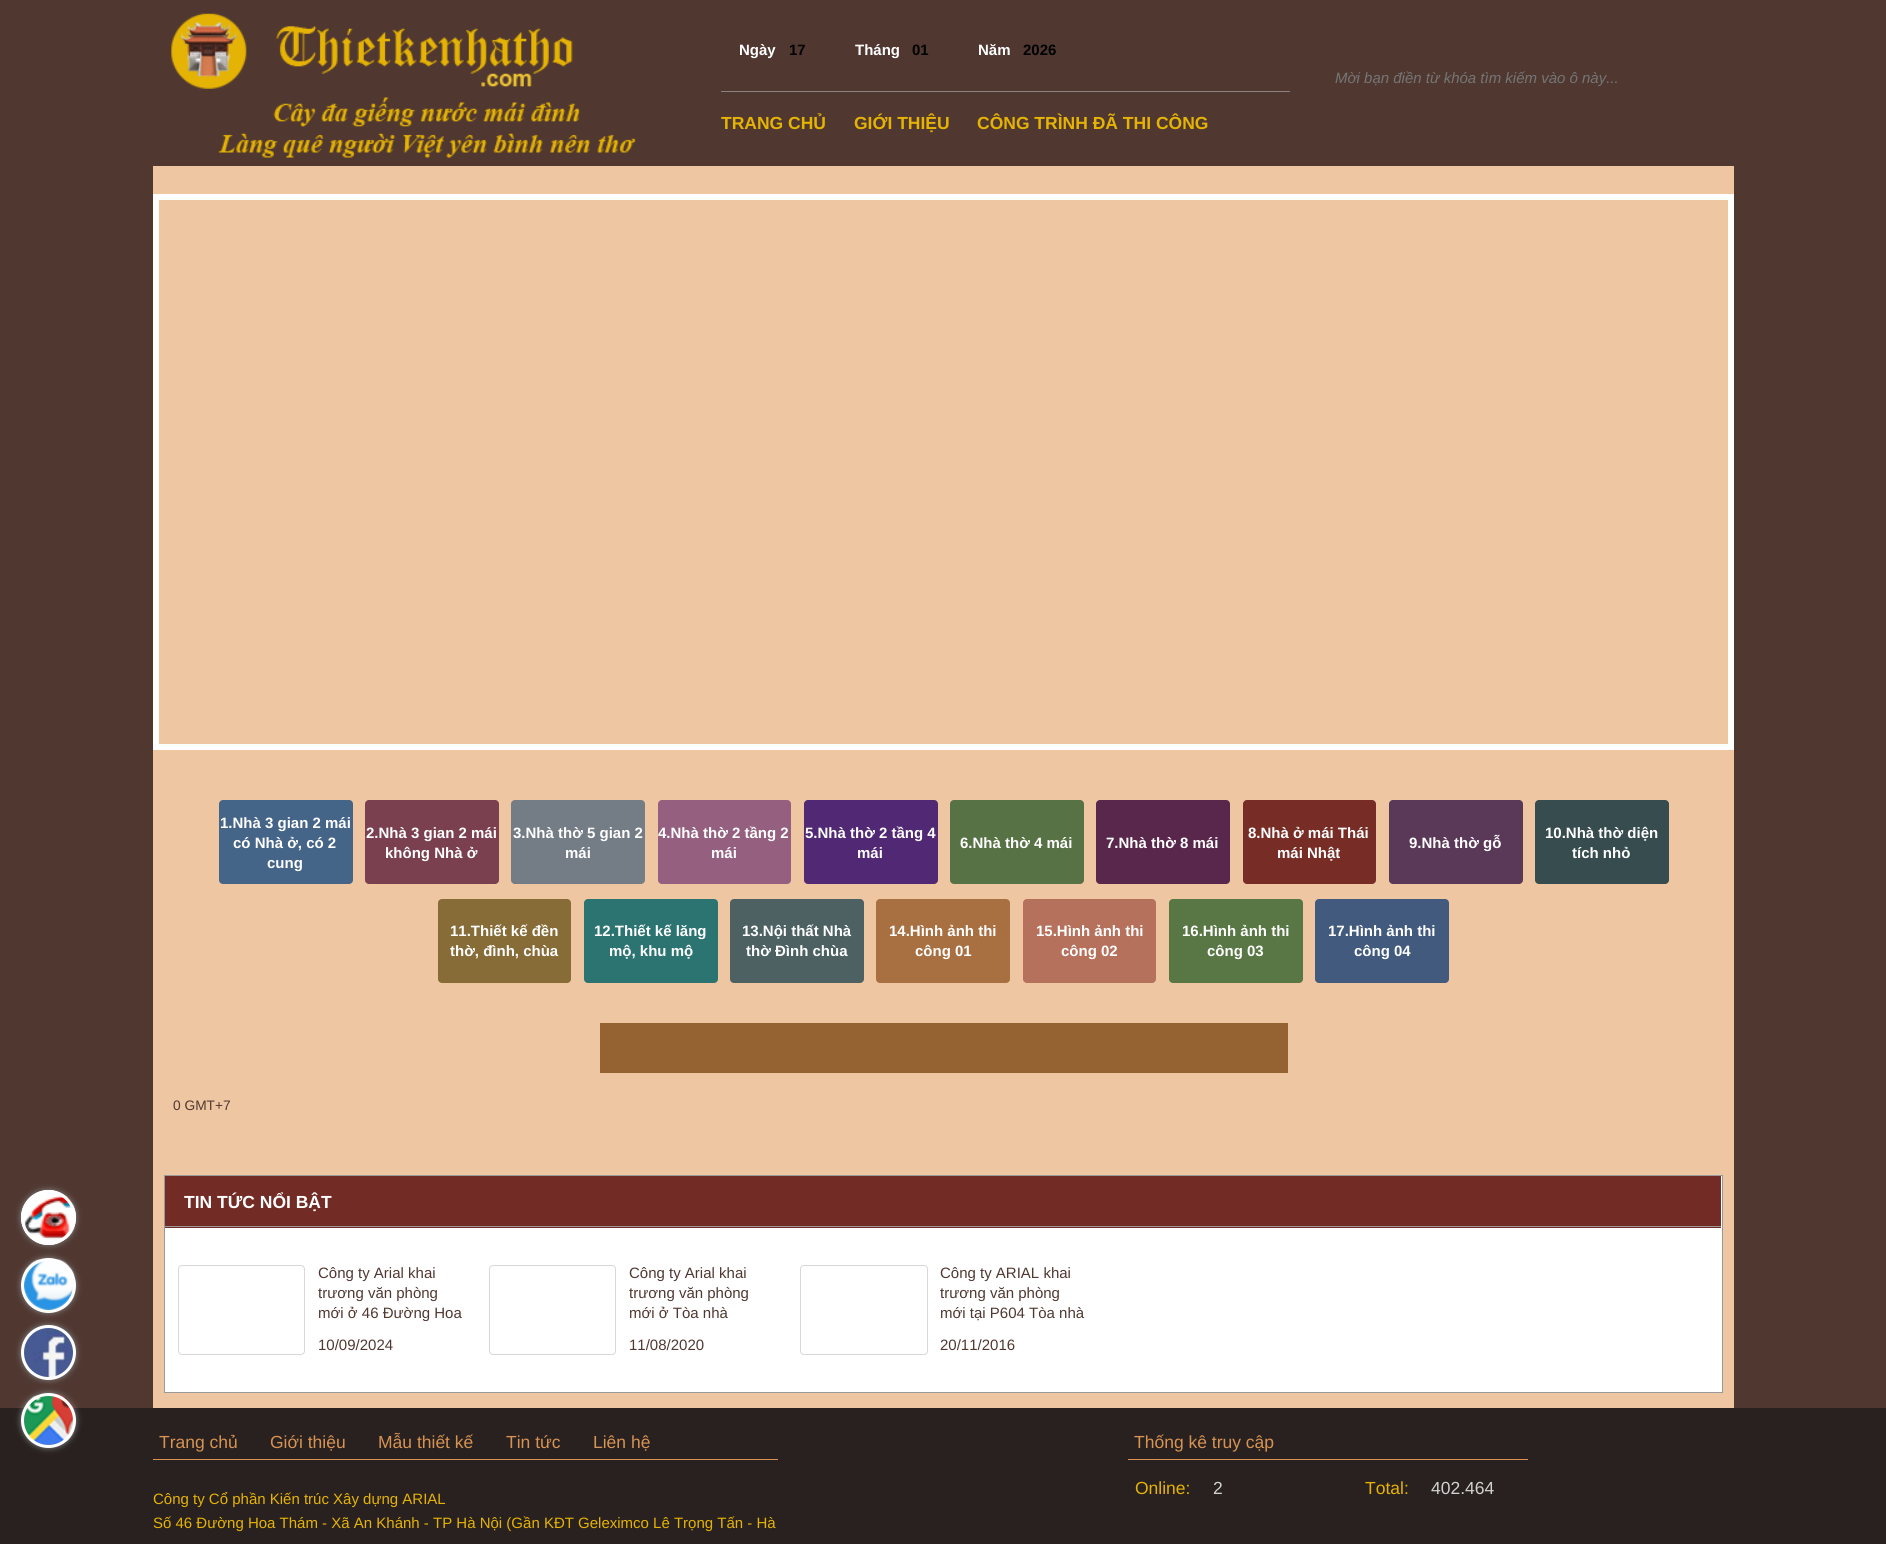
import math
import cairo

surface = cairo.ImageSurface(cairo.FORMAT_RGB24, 1886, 1544)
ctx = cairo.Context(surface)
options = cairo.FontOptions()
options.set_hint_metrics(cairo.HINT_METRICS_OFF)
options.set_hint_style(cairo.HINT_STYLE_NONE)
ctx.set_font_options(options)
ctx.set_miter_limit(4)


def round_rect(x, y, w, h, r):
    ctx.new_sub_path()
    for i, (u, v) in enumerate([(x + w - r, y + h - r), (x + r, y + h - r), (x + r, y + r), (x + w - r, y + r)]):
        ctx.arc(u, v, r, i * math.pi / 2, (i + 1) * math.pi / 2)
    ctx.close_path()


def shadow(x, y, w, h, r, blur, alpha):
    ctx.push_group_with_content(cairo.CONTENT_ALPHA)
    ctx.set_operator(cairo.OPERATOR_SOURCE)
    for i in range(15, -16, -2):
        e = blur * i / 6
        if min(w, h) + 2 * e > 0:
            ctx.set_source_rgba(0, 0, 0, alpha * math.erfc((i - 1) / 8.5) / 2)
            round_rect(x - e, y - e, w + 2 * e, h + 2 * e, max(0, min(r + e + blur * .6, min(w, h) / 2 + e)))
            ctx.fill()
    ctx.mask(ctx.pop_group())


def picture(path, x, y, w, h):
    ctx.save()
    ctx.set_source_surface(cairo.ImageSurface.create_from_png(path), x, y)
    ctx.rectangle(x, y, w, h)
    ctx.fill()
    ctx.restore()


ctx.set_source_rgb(0.314, 0.22, 0.192)
ctx.paint()
picture("img1.png", 171, 13, 465, 145)
ctx.select_font_face("Liberation Sans", cairo.FONT_SLANT_NORMAL, cairo.FONT_WEIGHT_BOLD)
ctx.set_font_size(15)
ctx.set_source_rgb(1, 1, 1)
ctx.move_to(739, 55)
ctx.show_text("Ngày")
ctx.set_source_rgb(0, 0, 0)
ctx.move_to(789, 55)
ctx.show_text("17")
ctx.set_source_rgb(1, 1, 1)
ctx.move_to(855, 55)
ctx.show_text("Tháng")
ctx.set_source_rgb(0, 0, 0)
ctx.move_to(912, 55)
ctx.show_text("01")
ctx.set_source_rgb(1, 1, 1)
ctx.move_to(978, 55)
ctx.show_text("Năm")
ctx.set_source_rgb(0, 0, 0)
ctx.move_to(1023, 55)
ctx.show_text("2026")
ctx.set_source_rgb(0.549, 0.498, 0.502)
ctx.rectangle(721, 91, 569, 1)
ctx.fill()
ctx.set_font_size(17.5)
ctx.set_source_rgb(0.898, 0.702, 0.016)
ctx.move_to(721, 129)
ctx.show_text("TRANG CHỦ")
ctx.move_to(854, 129)
ctx.show_text("GIỚI THIỆU")
ctx.move_to(977, 129)
ctx.show_text("CÔNG TRÌNH ĐÃ THI CÔNG")
ctx.select_font_face("Liberation Sans", cairo.FONT_SLANT_ITALIC)
ctx.set_font_size(15)
ctx.set_source_rgb(0.459, 0.459, 0.459)
ctx.move_to(1335, 83)
ctx.show_text("Mời bạn điền từ khóa tìm kiếm vào ô này...")
ctx.set_source_rgb(0.533, 0.533, 0.533)
shadow(21, 1190, 55, 55, 27.5, 3, 1)
ctx.set_source_rgb(1, 1, 1)
ctx.arc(48.5, 1217.5, 27.5, 0, 2 * math.pi)
ctx.fill()
picture("img2.png", 23, 1195, 52, 45)
ctx.arc(48.5, 1217.5, 26, 0, 2 * math.pi)
ctx.set_line_width(3)
ctx.stroke()
ctx.set_source_rgb(0.533, 0.533, 0.533)
shadow(21, 1258, 55, 55, 27.5, 3, 1)
picture("img3.png", 23, 1259, 52, 52)
ctx.arc(48.5, 1285.5, 26, 0, 2 * math.pi)
ctx.set_source_rgb(1, 1, 1)
ctx.stroke()
ctx.set_source_rgb(0.533, 0.533, 0.533)
shadow(21, 1325, 55, 55, 27.5, 3, 1)
picture("img4.png", 23, 1327, 52, 51)
ctx.arc(48.5, 1352.5, 26, 0, 2 * math.pi)
ctx.set_source_rgb(1, 1, 1)
ctx.stroke()
ctx.set_source_rgb(0.157, 0.129, 0.122)
ctx.rectangle(0, 1408, 1886, 136)
ctx.fill()
ctx.set_source_rgb(0.533, 0.533, 0.533)
shadow(21, 1393, 55, 55, 27.5, 3, 1)
picture("img5.png", 23, 1394, 52, 52)
ctx.arc(48.5, 1420.5, 26, 0, 2 * math.pi)
ctx.set_source_rgb(1, 1, 1)
ctx.stroke()
ctx.set_source_rgb(0.933, 0.776, 0.631)
ctx.rectangle(153, 166, 1581, 1242)
ctx.fill()
ctx.rectangle(156, 197, 1575, 550)
ctx.set_source_rgb(1, 1, 1)
ctx.set_line_width(6)
ctx.stroke()
ctx.set_source_rgb(0.267, 0.392, 0.533)
round_rect(219, 800, 134, 84, 4)
ctx.fill()
ctx.select_font_face("Liberation Sans", cairo.FONT_SLANT_NORMAL, cairo.FONT_WEIGHT_BOLD)
ctx.set_source_rgb(1, 1, 1)
ctx.move_to(220, 828)
ctx.show_text("1.Nhà 3 gian 2 mái")
ctx.move_to(233, 848)
ctx.show_text("có Nhà ở, có 2")
ctx.move_to(267, 868)
ctx.show_text("cung")
ctx.set_source_rgb(0.482, 0.251, 0.314)
round_rect(365, 800, 134, 84, 4)
ctx.fill()
ctx.set_source_rgb(1, 1, 1)
ctx.move_to(366, 838)
ctx.show_text("2.Nhà 3 gian 2 mái")
ctx.move_to(385, 858)
ctx.show_text("không Nhà ở")
ctx.set_source_rgb(0.455, 0.486, 0.525)
round_rect(511, 800, 134, 84, 4)
ctx.fill()
ctx.set_source_rgb(1, 1, 1)
ctx.move_to(513, 838)
ctx.show_text("3.Nhà thờ 5 gian 2")
ctx.move_to(565, 858)
ctx.show_text("mái")
ctx.set_source_rgb(0.584, 0.373, 0.502)
round_rect(658, 800, 133, 84, 4)
ctx.fill()
ctx.set_source_rgb(1, 1, 1)
ctx.move_to(658, 838)
ctx.show_text("4.Nhà thờ 2 tầng 2")
ctx.move_to(711, 858)
ctx.show_text("mái")
ctx.set_source_rgb(0.314, 0.157, 0.455)
round_rect(804, 800, 134, 84, 4)
ctx.fill()
ctx.set_source_rgb(1, 1, 1)
ctx.move_to(805, 838)
ctx.show_text("5.Nhà thờ 2 tầng 4")
ctx.move_to(857, 858)
ctx.show_text("mái")
ctx.set_source_rgb(0.341, 0.447, 0.267)
round_rect(950, 800, 134, 84, 4)
ctx.fill()
ctx.set_source_rgb(1, 1, 1)
ctx.move_to(960, 848)
ctx.show_text("6.Nhà thờ 4 mái")
ctx.set_source_rgb(0.349, 0.153, 0.294)
round_rect(1096, 800, 134, 84, 4)
ctx.fill()
ctx.set_source_rgb(1, 1, 1)
ctx.move_to(1106, 848)
ctx.show_text("7.Nhà thờ 8 mái")
ctx.set_source_rgb(0.467, 0.176, 0.145)
round_rect(1243, 800, 133, 84, 4)
ctx.fill()
ctx.set_source_rgb(1, 1, 1)
ctx.move_to(1248, 838)
ctx.show_text("8.Nhà ở mái Thái")
ctx.move_to(1277, 858)
ctx.show_text("mái Nhật")
ctx.set_source_rgb(0.353, 0.22, 0.341)
round_rect(1389, 800, 134, 84, 4)
ctx.fill()
ctx.set_source_rgb(1, 1, 1)
ctx.move_to(1409, 848)
ctx.show_text("9.Nhà thờ gỗ")
ctx.set_source_rgb(0.216, 0.298, 0.306)
round_rect(1535, 800, 134, 84, 4)
ctx.fill()
ctx.set_source_rgb(1, 1, 1)
ctx.move_to(1545, 838)
ctx.show_text("10.Nhà thờ diện")
ctx.move_to(1572, 858)
ctx.show_text("tích nhỏ")
ctx.set_source_rgb(0.529, 0.424, 0.216)
round_rect(438, 899, 133, 84, 4)
ctx.fill()
ctx.set_source_rgb(1, 1, 1)
ctx.move_to(450, 936)
ctx.show_text("11.Thiết kế đền")
ctx.move_to(450, 956)
ctx.show_text("thờ, đình, chùa")
ctx.set_source_rgb(0.173, 0.455, 0.443)
round_rect(584, 899, 134, 84, 4)
ctx.fill()
ctx.set_source_rgb(1, 1, 1)
ctx.move_to(594, 936)
ctx.show_text("12.Thiết kế lăng")
ctx.move_to(609, 956)
ctx.show_text("mộ, khu mộ")
ctx.set_source_rgb(0.302, 0.38, 0.388)
round_rect(730, 899, 134, 84, 4)
ctx.fill()
ctx.set_source_rgb(1, 1, 1)
ctx.move_to(742, 936)
ctx.show_text("13.Nội thất Nhà")
ctx.move_to(746, 956)
ctx.show_text("thờ Đình chùa")
ctx.set_source_rgb(0.659, 0.435, 0.255)
round_rect(876, 899, 134, 84, 4)
ctx.fill()
ctx.set_source_rgb(1, 1, 1)
ctx.move_to(889, 936)
ctx.show_text("14.Hình ảnh thi")
ctx.move_to(915, 956)
ctx.show_text("công 01")
ctx.set_source_rgb(0.71, 0.443, 0.361)
round_rect(1023, 899, 133, 84, 4)
ctx.fill()
ctx.set_source_rgb(1, 1, 1)
ctx.move_to(1036, 936)
ctx.show_text("15.Hình ảnh thi")
ctx.move_to(1061, 956)
ctx.show_text("công 02")
ctx.set_source_rgb(0.345, 0.467, 0.267)
round_rect(1169, 899, 134, 84, 4)
ctx.fill()
ctx.set_source_rgb(1, 1, 1)
ctx.move_to(1182, 936)
ctx.show_text("16.Hình ảnh thi")
ctx.move_to(1207, 956)
ctx.show_text("công 03")
ctx.set_source_rgb(0.255, 0.353, 0.49)
round_rect(1315, 899, 134, 84, 4)
ctx.fill()
ctx.set_source_rgb(1, 1, 1)
ctx.move_to(1328, 936)
ctx.show_text("17.Hình ảnh thi")
ctx.move_to(1354, 956)
ctx.show_text("công 04")
ctx.set_source_rgb(0.584, 0.384, 0.192)
ctx.rectangle(600, 1023, 688, 50)
ctx.fill()
ctx.select_font_face("Liberation Sans")
ctx.set_font_size(13.75)
ctx.set_source_rgb(0.314, 0.22, 0.192)
ctx.move_to(173, 1110)
ctx.show_text("0 GMT+7")
ctx.set_source_rgb(1, 1, 1)
ctx.rectangle(164.5, 1175.5, 1558, 217)
ctx.fill_preserve()
ctx.set_source_rgb(0.6, 0.6, 0.6)
ctx.set_line_width(1)
ctx.stroke()
ctx.set_source_rgb(0.451, 0.173, 0.145)
ctx.rectangle(165, 1176, 1556, 52)
ctx.fill()
ctx.set_source_rgb(0.6, 0.6, 0.6)
ctx.rectangle(165, 1226, 1556, 1)
ctx.fill()
ctx.select_font_face("Liberation Sans", cairo.FONT_SLANT_NORMAL, cairo.FONT_WEIGHT_BOLD)
ctx.set_font_size(17.5)
ctx.set_source_rgb(1, 1, 1)
ctx.move_to(184, 1208)
ctx.show_text("TIN TỨC NỔI BẬT")
round_rect(178.5, 1265.5, 126, 89, 3.5)
ctx.set_source_rgb(0.843, 0.843, 0.843)
ctx.stroke()
ctx.select_font_face("Liberation Sans")
ctx.set_font_size(15)
ctx.set_source_rgb(0.314, 0.22, 0.192)
ctx.move_to(318, 1278)
ctx.show_text("Công ty Arial khai")
ctx.move_to(318, 1298)
ctx.show_text("trương văn phòng")
ctx.move_to(318, 1318)
ctx.show_text("mới ở 46 Đường Hoa")
ctx.move_to(318, 1350)
ctx.show_text("10/09/2024")
round_rect(489.5, 1265.5, 126, 89, 3.5)
ctx.set_source_rgb(0.843, 0.843, 0.843)
ctx.stroke()
ctx.set_source_rgb(0.314, 0.22, 0.192)
ctx.move_to(629, 1278)
ctx.show_text("Công ty Arial khai")
ctx.move_to(629, 1298)
ctx.show_text("trương văn phòng")
ctx.move_to(629, 1318)
ctx.show_text("mới ở Tòa nhà")
ctx.move_to(629, 1350)
ctx.show_text("11/08/2020")
round_rect(800.5, 1265.5, 127, 89, 3.5)
ctx.set_source_rgb(0.843, 0.843, 0.843)
ctx.stroke()
ctx.set_source_rgb(0.314, 0.22, 0.192)
ctx.move_to(940, 1278)
ctx.show_text("Công ty ARIAL khai")
ctx.move_to(940, 1298)
ctx.show_text("trương văn phòng")
ctx.move_to(940, 1318)
ctx.show_text("mới tại P604 Tòa nhà")
ctx.move_to(940, 1350)
ctx.show_text("20/11/2016")
ctx.set_source_rgb(0.843, 0.576, 0.325)
ctx.rectangle(153, 1459, 625, 1)
ctx.fill()
ctx.set_font_size(17.5)
ctx.move_to(159, 1448)
ctx.show_text("Trang chủ")
ctx.move_to(270, 1448)
ctx.show_text("Giới thiệu")
ctx.move_to(378, 1448)
ctx.show_text("Mẫu thiết kế")
ctx.move_to(506, 1448)
ctx.show_text("Tin tức")
ctx.move_to(593, 1448)
ctx.show_text("Liên hệ")
ctx.set_font_size(15)
ctx.set_source_rgb(0.898, 0.702, 0.016)
ctx.move_to(153, 1504)
ctx.show_text("Công ty Cổ phần Kiến trúc Xây dựng ARIAL")
ctx.move_to(153, 1528)
ctx.show_text("Số 46 Đường Hoa Thám - Xã An Khánh - TP Hà Nội (Gần KĐT Geleximco Lê Trọng Tấn - Hà")
ctx.set_source_rgb(0.843, 0.576, 0.325)
ctx.rectangle(1128, 1459, 400, 1)
ctx.fill()
ctx.set_font_size(17.5)
ctx.move_to(1134, 1448)
ctx.show_text("Thống kê truy cập")
ctx.set_source_rgb(0.898, 0.702, 0.016)
ctx.move_to(1135, 1494)
ctx.show_text("Online:")
ctx.set_source_rgb(0.824, 0.824, 0.824)
ctx.move_to(1213, 1494)
ctx.show_text("2")
ctx.set_source_rgb(0.898, 0.702, 0.016)
ctx.move_to(1365, 1494)
ctx.show_text("Total:")
ctx.set_source_rgb(0.824, 0.824, 0.824)
ctx.move_to(1431, 1494)
ctx.show_text("402.464")
surface.write_to_png("page.png")
